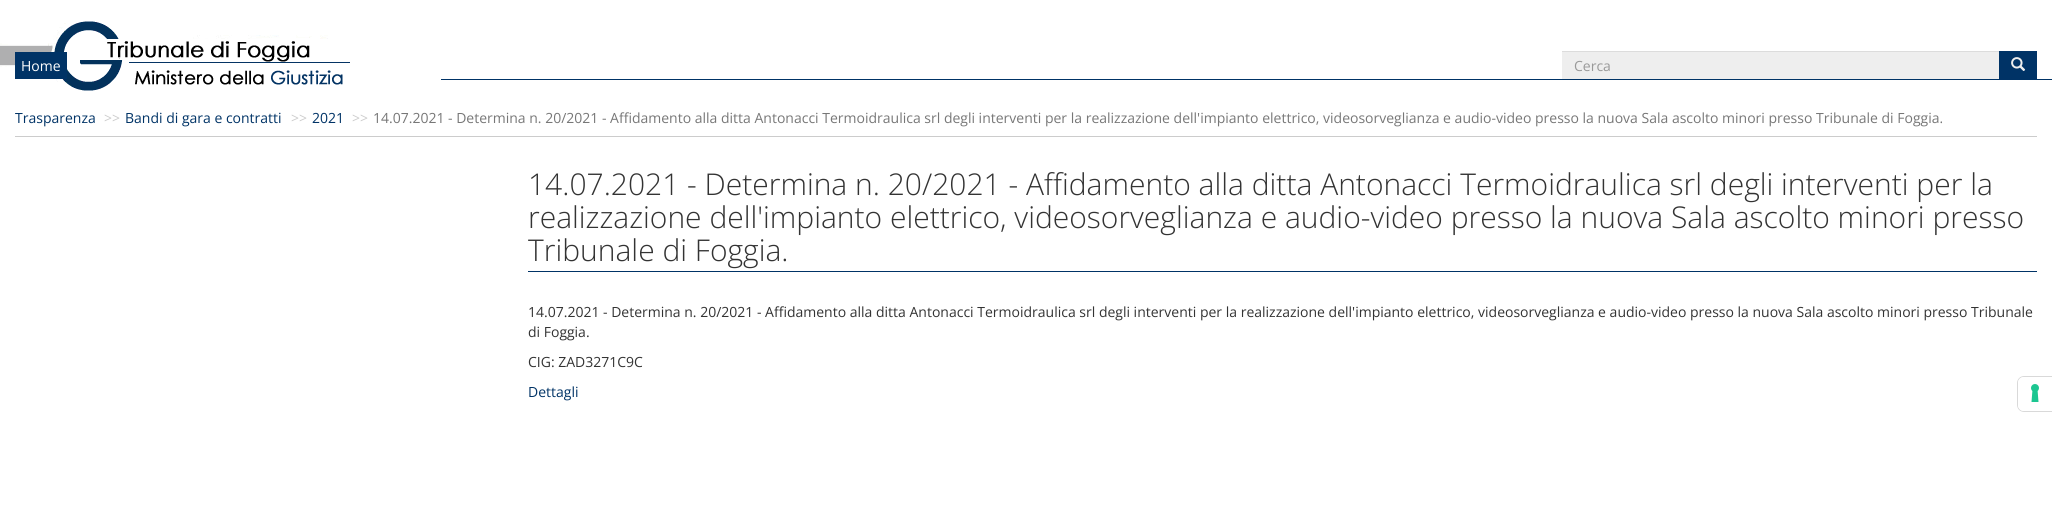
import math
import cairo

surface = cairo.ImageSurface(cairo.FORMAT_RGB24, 2052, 525)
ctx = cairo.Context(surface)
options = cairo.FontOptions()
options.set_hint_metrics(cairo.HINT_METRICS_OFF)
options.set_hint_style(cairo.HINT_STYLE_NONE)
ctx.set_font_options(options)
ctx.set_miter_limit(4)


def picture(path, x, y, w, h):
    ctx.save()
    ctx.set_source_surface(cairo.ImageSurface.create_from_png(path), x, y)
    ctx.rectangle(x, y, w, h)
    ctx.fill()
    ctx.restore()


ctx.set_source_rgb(1, 1, 1)
ctx.paint()
picture("img1.png", 0, 21, 441, 70)
ctx.set_source_rgb(0, 0.2, 0.4)
ctx.rectangle(441, 79, 1611, 1)
ctx.fill()
ctx.rectangle(15, 52, 52, 27)
ctx.fill()
ctx.select_font_face("Open Sans")
ctx.set_font_size(14)
ctx.set_source_rgb(1, 1, 1)
ctx.move_to(21, 71)
ctx.show_text("Home")
ctx.set_source_rgb(0.933, 0.933, 0.933)
ctx.rectangle(1562, 52, 437, 27)
ctx.fill()
ctx.set_source_rgb(0.863, 0.863, 0.863)
ctx.rectangle(1562, 51, 438, 1)
ctx.fill()
ctx.set_source_rgb(0.6, 0.6, 0.6)
ctx.move_to(1574, 71)
ctx.show_text("Cerca")
ctx.set_source_rgb(0, 0.2, 0.4)
ctx.rectangle(1999, 51, 38, 28)
ctx.fill()
picture("img2.png", 2011, 57, 15, 14)
ctx.set_source_rgb(0.8, 0.8, 0.8)
ctx.rectangle(15, 136, 2022, 1)
ctx.fill()
ctx.set_source_rgb(0, 0.2, 0.4)
ctx.move_to(15, 123)
ctx.show_text("Trasparenza")
ctx.set_source_rgb(0.8, 0.8, 0.8)
ctx.move_to(104, 123)
ctx.show_text(">>")
ctx.set_source_rgb(0, 0.2, 0.4)
ctx.move_to(125, 123)
ctx.show_text("Bandi di gara e contratti")
ctx.set_source_rgb(0.8, 0.8, 0.8)
ctx.move_to(291, 123)
ctx.show_text(">>")
ctx.set_source_rgb(0, 0.2, 0.4)
ctx.move_to(312, 123)
ctx.show_text("2021")
ctx.set_source_rgb(0.8, 0.8, 0.8)
ctx.move_to(352, 123)
ctx.show_text(">>")
ctx.set_source_rgb(0.467, 0.467, 0.467)
ctx.move_to(373, 123)
ctx.show_text("14.07.2021 - Determina n. 20/2021 - Affidamento alla ditta Antonacci Termoidraulica srl degli interventi per la realizzazione dell'impianto elettrico, videosorveglianza e audio-video presso la nuova Sala ascolto minori presso Tribunale di Foggia.")
ctx.set_source_rgb(0, 0.2, 0.4)
ctx.rectangle(528, 271, 1509, 1)
ctx.fill()
ctx.select_font_face("Open Sans Light")
ctx.set_font_size(30)
ctx.set_source_rgb(0.2, 0.2, 0.2)
ctx.move_to(528, 195)
ctx.show_text("14.07.2021 - Determina n. 20/2021 - Affidamento alla ditta Antonacci Termoidraulica srl degli interventi per la")
ctx.move_to(528, 228)
ctx.show_text("realizzazione dell'impianto elettrico, videosorveglianza e audio-video presso la nuova Sala ascolto minori presso")
ctx.move_to(528, 261)
ctx.show_text("Tribunale di Foggia.")
ctx.select_font_face("Open Sans")
ctx.set_font_size(14)
ctx.move_to(528, 317)
ctx.show_text("14.07.2021 - Determina n. 20/2021 - Affidamento alla ditta Antonacci Termoidraulica srl degli interventi per la realizzazione dell'impianto elettrico, videosorveglianza e audio-video presso la nuova Sala ascolto minori presso Tribunale")
ctx.move_to(528, 337)
ctx.show_text("di Foggia.")
ctx.move_to(528, 367)
ctx.show_text("CIG: ZAD3271C9C")
ctx.set_source_rgb(0, 0.2, 0.4)
ctx.move_to(528, 397)
ctx.show_text("Dettagli")
ctx.new_path()
ctx.move_to(2024, 376.5)
ctx.line_to(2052.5, 376.5)
ctx.line_to(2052.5, 411.5)
ctx.line_to(2024, 411.5)
ctx.curve_to(2020.5, 411.5, 2017.5, 408.5, 2017.5, 405)
ctx.line_to(2017.5, 383)
ctx.curve_to(2017.5, 379.5, 2020.5, 376.5, 2024, 376.5)
ctx.close_path()
ctx.set_source_rgb(0.851, 0.851, 0.851)
ctx.set_line_width(1)
ctx.stroke()
ctx.set_source_rgb(1, 1, 1)
ctx.new_path()
ctx.move_to(2024, 377)
ctx.line_to(2052, 377)
ctx.line_to(2052, 411)
ctx.line_to(2024, 411)
ctx.curve_to(2020.5, 411, 2018, 408.5, 2018, 405)
ctx.line_to(2018, 383)
ctx.curve_to(2018, 379.5, 2020.5, 377, 2024, 377)
ctx.close_path()
ctx.fill()
picture("img3.png", 2031, 384, 8, 18)
surface.write_to_png("page.png")
